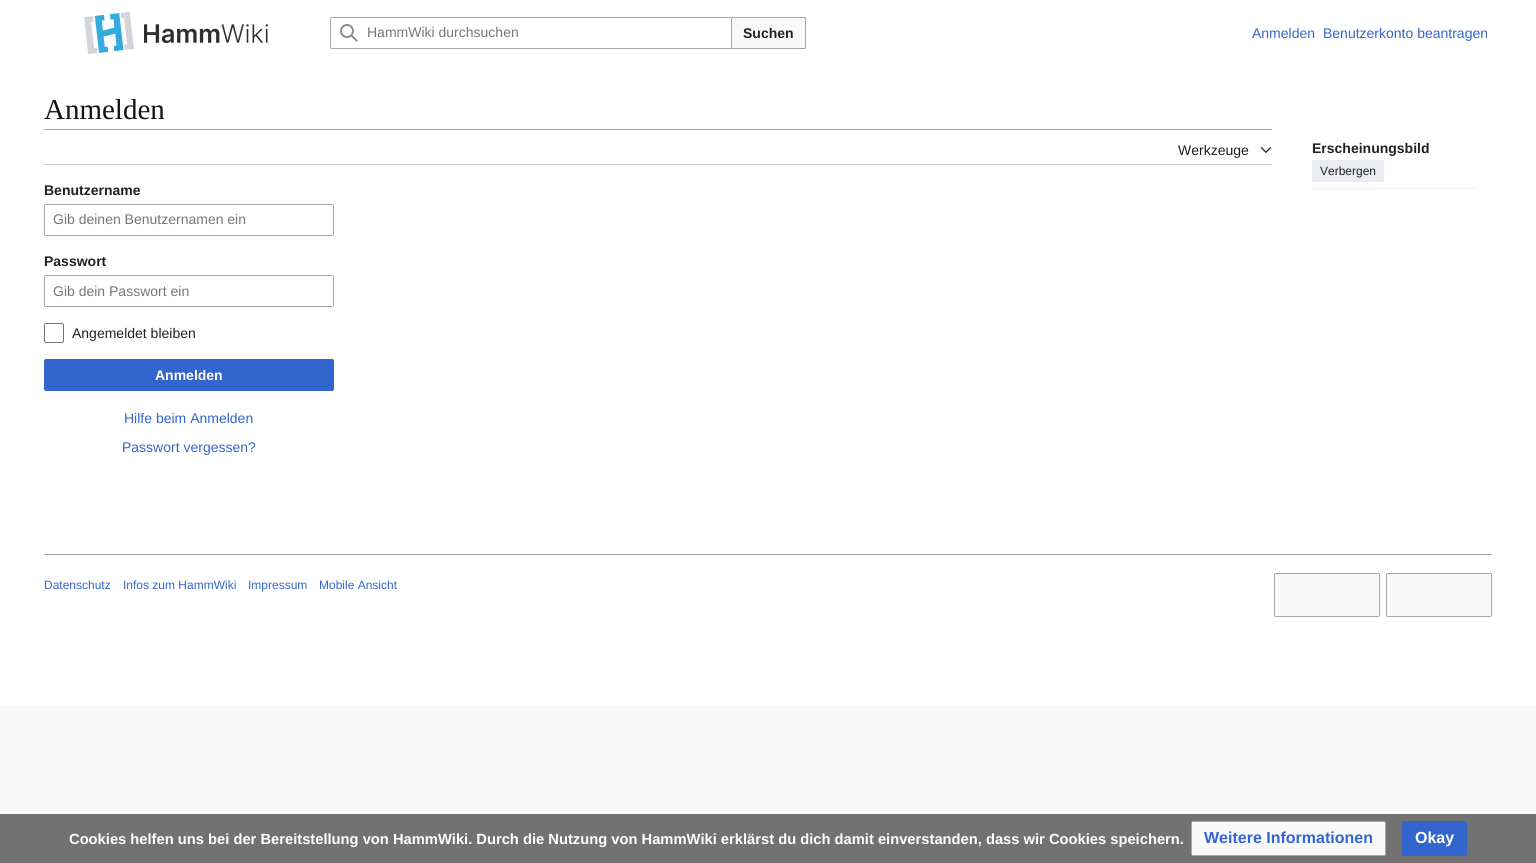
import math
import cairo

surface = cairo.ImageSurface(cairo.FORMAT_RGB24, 1536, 863)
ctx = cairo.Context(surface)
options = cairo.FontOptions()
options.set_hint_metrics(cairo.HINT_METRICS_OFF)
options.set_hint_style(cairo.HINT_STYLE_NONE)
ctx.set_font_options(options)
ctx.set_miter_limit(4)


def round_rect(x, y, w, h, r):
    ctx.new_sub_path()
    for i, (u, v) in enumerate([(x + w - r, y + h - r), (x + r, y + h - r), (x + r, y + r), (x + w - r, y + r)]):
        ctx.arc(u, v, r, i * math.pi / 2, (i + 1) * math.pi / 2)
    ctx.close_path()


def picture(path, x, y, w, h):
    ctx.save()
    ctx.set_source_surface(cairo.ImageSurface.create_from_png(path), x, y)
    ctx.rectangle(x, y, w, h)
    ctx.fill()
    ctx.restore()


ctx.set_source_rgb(0.973, 0.976, 0.98)
ctx.paint()
ctx.set_source_rgb(1, 1, 1)
ctx.rectangle(0, 0, 1536, 705)
ctx.fill()
picture("img1.png", 84, 12, 50, 42)
picture("img2.png", 144, 24, 124, 19)
round_rect(330.5, 17.5, 475, 31, 1.5)
ctx.set_source_rgb(0.635, 0.663, 0.694)
ctx.set_line_width(1)
ctx.stroke()
ctx.set_source_rgb(0.973, 0.976, 0.98)
ctx.new_path()
ctx.move_to(731.5, 17.5)
ctx.line_to(804, 17.5)
ctx.curve_to(805, 17.5, 805.5, 18, 805.5, 19)
ctx.line_to(805.5, 47)
ctx.curve_to(805.5, 48, 805, 48.5, 804, 48.5)
ctx.line_to(731.5, 48.5)
ctx.close_path()
ctx.fill_preserve()
ctx.set_source_rgb(0.635, 0.663, 0.694)
ctx.stroke()
ctx.set_source_rgb(1, 1, 1)
ctx.new_path()
ctx.move_to(332, 17)
ctx.line_to(732, 17)
ctx.line_to(732, 49)
ctx.line_to(332, 49)
ctx.curve_to(331, 49, 330, 48, 330, 47)
ctx.line_to(330, 19)
ctx.curve_to(330, 18, 331, 17, 332, 17)
ctx.close_path()
ctx.fill()
ctx.set_source_rgb(0.635, 0.663, 0.694)
ctx.set_fill_rule(cairo.FILL_RULE_EVEN_ODD)
ctx.new_path()
ctx.move_to(332, 17)
ctx.curve_to(331, 17, 330, 18, 330, 19)
ctx.line_to(330, 47)
ctx.curve_to(330, 48, 331, 49, 332, 49)
ctx.line_to(732, 49)
ctx.line_to(732, 17)
ctx.close_path()
ctx.move_to(331, 18)
ctx.line_to(331, 48)
ctx.line_to(731, 48)
ctx.line_to(731, 18)
ctx.close_path()
ctx.fill()
picture("img3.png", 340, 24, 18, 18)
ctx.select_font_face("Liberation Sans")
ctx.set_font_size(14)
ctx.set_source_rgb(0.447, 0.467, 0.49)
ctx.move_to(367, 37)
ctx.show_text("HammWiki durchsuchen")
ctx.select_font_face("Liberation Sans", cairo.FONT_SLANT_NORMAL, cairo.FONT_WEIGHT_BOLD)
ctx.set_source_rgb(0.125, 0.129, 0.133)
ctx.move_to(743, 38)
ctx.show_text("Suchen")
ctx.select_font_face("Liberation Sans")
ctx.set_source_rgb(0.2, 0.4, 0.8)
ctx.move_to(1252, 38)
ctx.show_text("Anmelden")
ctx.move_to(1323, 38)
ctx.show_text("Benutzerkonto beantragen")
ctx.select_font_face("Liberation Serif")
ctx.set_font_size(29)
ctx.set_source_rgb(0.063, 0.078, 0.094)
ctx.move_to(44, 119)
ctx.show_text("Anmelden")
ctx.set_source_rgb(0.635, 0.663, 0.694)
ctx.rectangle(44, 129, 1228, 1)
ctx.fill()
ctx.set_source_rgb(0.784, 0.8, 0.82)
ctx.rectangle(44, 164, 1228, 1)
ctx.fill()
ctx.select_font_face("Liberation Sans")
ctx.set_font_size(14)
ctx.set_source_rgb(0.125, 0.129, 0.133)
ctx.move_to(1178, 155)
ctx.show_text("Werkzeuge")
picture("img4.png", 1260, 147, 12, 6)
ctx.set_source_rgb(0.918, 0.925, 0.941)
ctx.rectangle(1312, 188, 164, 1)
ctx.fill()
ctx.select_font_face("Liberation Sans", cairo.FONT_SLANT_NORMAL, cairo.FONT_WEIGHT_BOLD)
ctx.set_source_rgb(0.125, 0.129, 0.133)
ctx.move_to(1312, 153)
ctx.show_text("Erscheinungsbild")
ctx.set_source_rgb(0.918, 0.925, 0.941)
round_rect(1312, 160, 72, 22, 2)
ctx.fill()
ctx.select_font_face("Liberation Sans")
ctx.set_font_size(12)
ctx.set_source_rgb(0.125, 0.129, 0.133)
ctx.move_to(1320, 175)
ctx.show_text("Verbergen")
ctx.select_font_face("Liberation Sans", cairo.FONT_SLANT_NORMAL, cairo.FONT_WEIGHT_BOLD)
ctx.set_font_size(14)
ctx.move_to(44, 195)
ctx.show_text("Benutzername")
ctx.set_source_rgb(0.635, 0.663, 0.694)
ctx.new_path()
ctx.move_to(46, 204)
ctx.curve_to(45, 204, 44, 205, 44, 206)
ctx.line_to(44, 234)
ctx.curve_to(44, 235, 45, 236, 46, 236)
ctx.line_to(332, 236)
ctx.curve_to(333, 236, 334, 235, 334, 234)
ctx.line_to(334, 206)
ctx.curve_to(334, 205, 333, 204, 332, 204)
ctx.close_path()
ctx.move_to(45, 205)
ctx.line_to(45, 235)
ctx.line_to(333, 235)
ctx.line_to(333, 205)
ctx.close_path()
ctx.fill()
ctx.select_font_face("Liberation Sans")
ctx.set_source_rgb(0.447, 0.467, 0.49)
ctx.move_to(53, 224)
ctx.show_text("Gib deinen Benutzernamen ein")
ctx.select_font_face("Liberation Sans", cairo.FONT_SLANT_NORMAL, cairo.FONT_WEIGHT_BOLD)
ctx.set_source_rgb(0.125, 0.129, 0.133)
ctx.move_to(44, 266)
ctx.show_text("Passwort")
ctx.set_source_rgb(0.635, 0.663, 0.694)
ctx.new_path()
ctx.move_to(46, 275)
ctx.curve_to(45, 275, 44, 276, 44, 277)
ctx.line_to(44, 305)
ctx.curve_to(44, 306, 45, 307, 46, 307)
ctx.line_to(332, 307)
ctx.curve_to(333, 307, 334, 306, 334, 305)
ctx.line_to(334, 277)
ctx.curve_to(334, 276, 333, 275, 332, 275)
ctx.close_path()
ctx.move_to(45, 276)
ctx.line_to(45, 306)
ctx.line_to(333, 306)
ctx.line_to(333, 276)
ctx.close_path()
ctx.fill()
ctx.select_font_face("Liberation Sans")
ctx.set_source_rgb(0.447, 0.467, 0.49)
ctx.move_to(53, 296)
ctx.show_text("Gib dein Passwort ein")
round_rect(44.5, 323.5, 19, 19, 1.5)
ctx.stroke()
ctx.set_source_rgb(0.125, 0.129, 0.133)
ctx.move_to(72, 338)
ctx.show_text("Angemeldet bleiben")
ctx.set_source_rgb(0.2, 0.4, 0.8)
round_rect(44.5, 359.5, 289, 31, 1.5)
ctx.fill_preserve()
ctx.stroke()
ctx.select_font_face("Liberation Sans", cairo.FONT_SLANT_NORMAL, cairo.FONT_WEIGHT_BOLD)
ctx.set_source_rgb(1, 1, 1)
ctx.move_to(155, 380)
ctx.show_text("Anmelden")
ctx.select_font_face("Liberation Sans")
ctx.set_source_rgb(0.2, 0.4, 0.8)
ctx.move_to(124, 423)
ctx.show_text("Hilfe beim Anmelden")
ctx.move_to(122, 452)
ctx.show_text("Passwort vergessen?")
ctx.set_source_rgb(0.447, 0.447, 0.447)
ctx.rectangle(0, 814, 1536, 49)
ctx.fill()
ctx.select_font_face("Liberation Sans", cairo.FONT_SLANT_NORMAL, cairo.FONT_WEIGHT_BOLD)
ctx.set_font_size(14.72)
ctx.set_source_rgb(1, 1, 1)
ctx.move_to(69, 844)
ctx.show_text("Cookies helfen uns bei der Bereitstellung von HammWiki. Durch die Nutzung von HammWiki erklärst du dich damit einverstanden, dass wir Cookies speichern.")
ctx.set_source_rgb(0.973, 0.976, 0.98)
round_rect(1191.5, 821.5, 194, 34, 1.5)
ctx.fill_preserve()
ctx.set_source_rgb(0.635, 0.663, 0.694)
ctx.stroke()
ctx.set_font_size(16)
ctx.set_source_rgb(0.2, 0.4, 0.8)
ctx.move_to(1204, 843)
ctx.show_text("Weitere Informationen")
round_rect(1402.5, 821.5, 64, 34, 1.5)
ctx.fill_preserve()
ctx.stroke()
ctx.set_source_rgb(1, 1, 1)
ctx.move_to(1415, 843)
ctx.show_text("Okay")
ctx.set_source_rgb(0.635, 0.663, 0.694)
ctx.rectangle(44, 554, 1448, 1)
ctx.fill()
ctx.select_font_face("Liberation Sans")
ctx.set_font_size(12)
ctx.set_source_rgb(0.2, 0.4, 0.8)
ctx.move_to(44, 589)
ctx.show_text("Datenschutz")
ctx.move_to(123, 589)
ctx.show_text("Infos zum HammWiki")
ctx.move_to(248, 589)
ctx.show_text("Impressum")
ctx.move_to(319, 589)
ctx.show_text("Mobile Ansicht")
ctx.set_source_rgb(0.973, 0.976, 0.98)
round_rect(1274.5, 573.5, 105, 43, 1.5)
ctx.fill_preserve()
ctx.set_source_rgb(0.635, 0.663, 0.694)
ctx.stroke()
ctx.set_source_rgb(0.973, 0.976, 0.98)
round_rect(1386.5, 573.5, 105, 43, 1.5)
ctx.fill_preserve()
ctx.set_source_rgb(0.635, 0.663, 0.694)
ctx.stroke()
surface.write_to_png("page.png")
